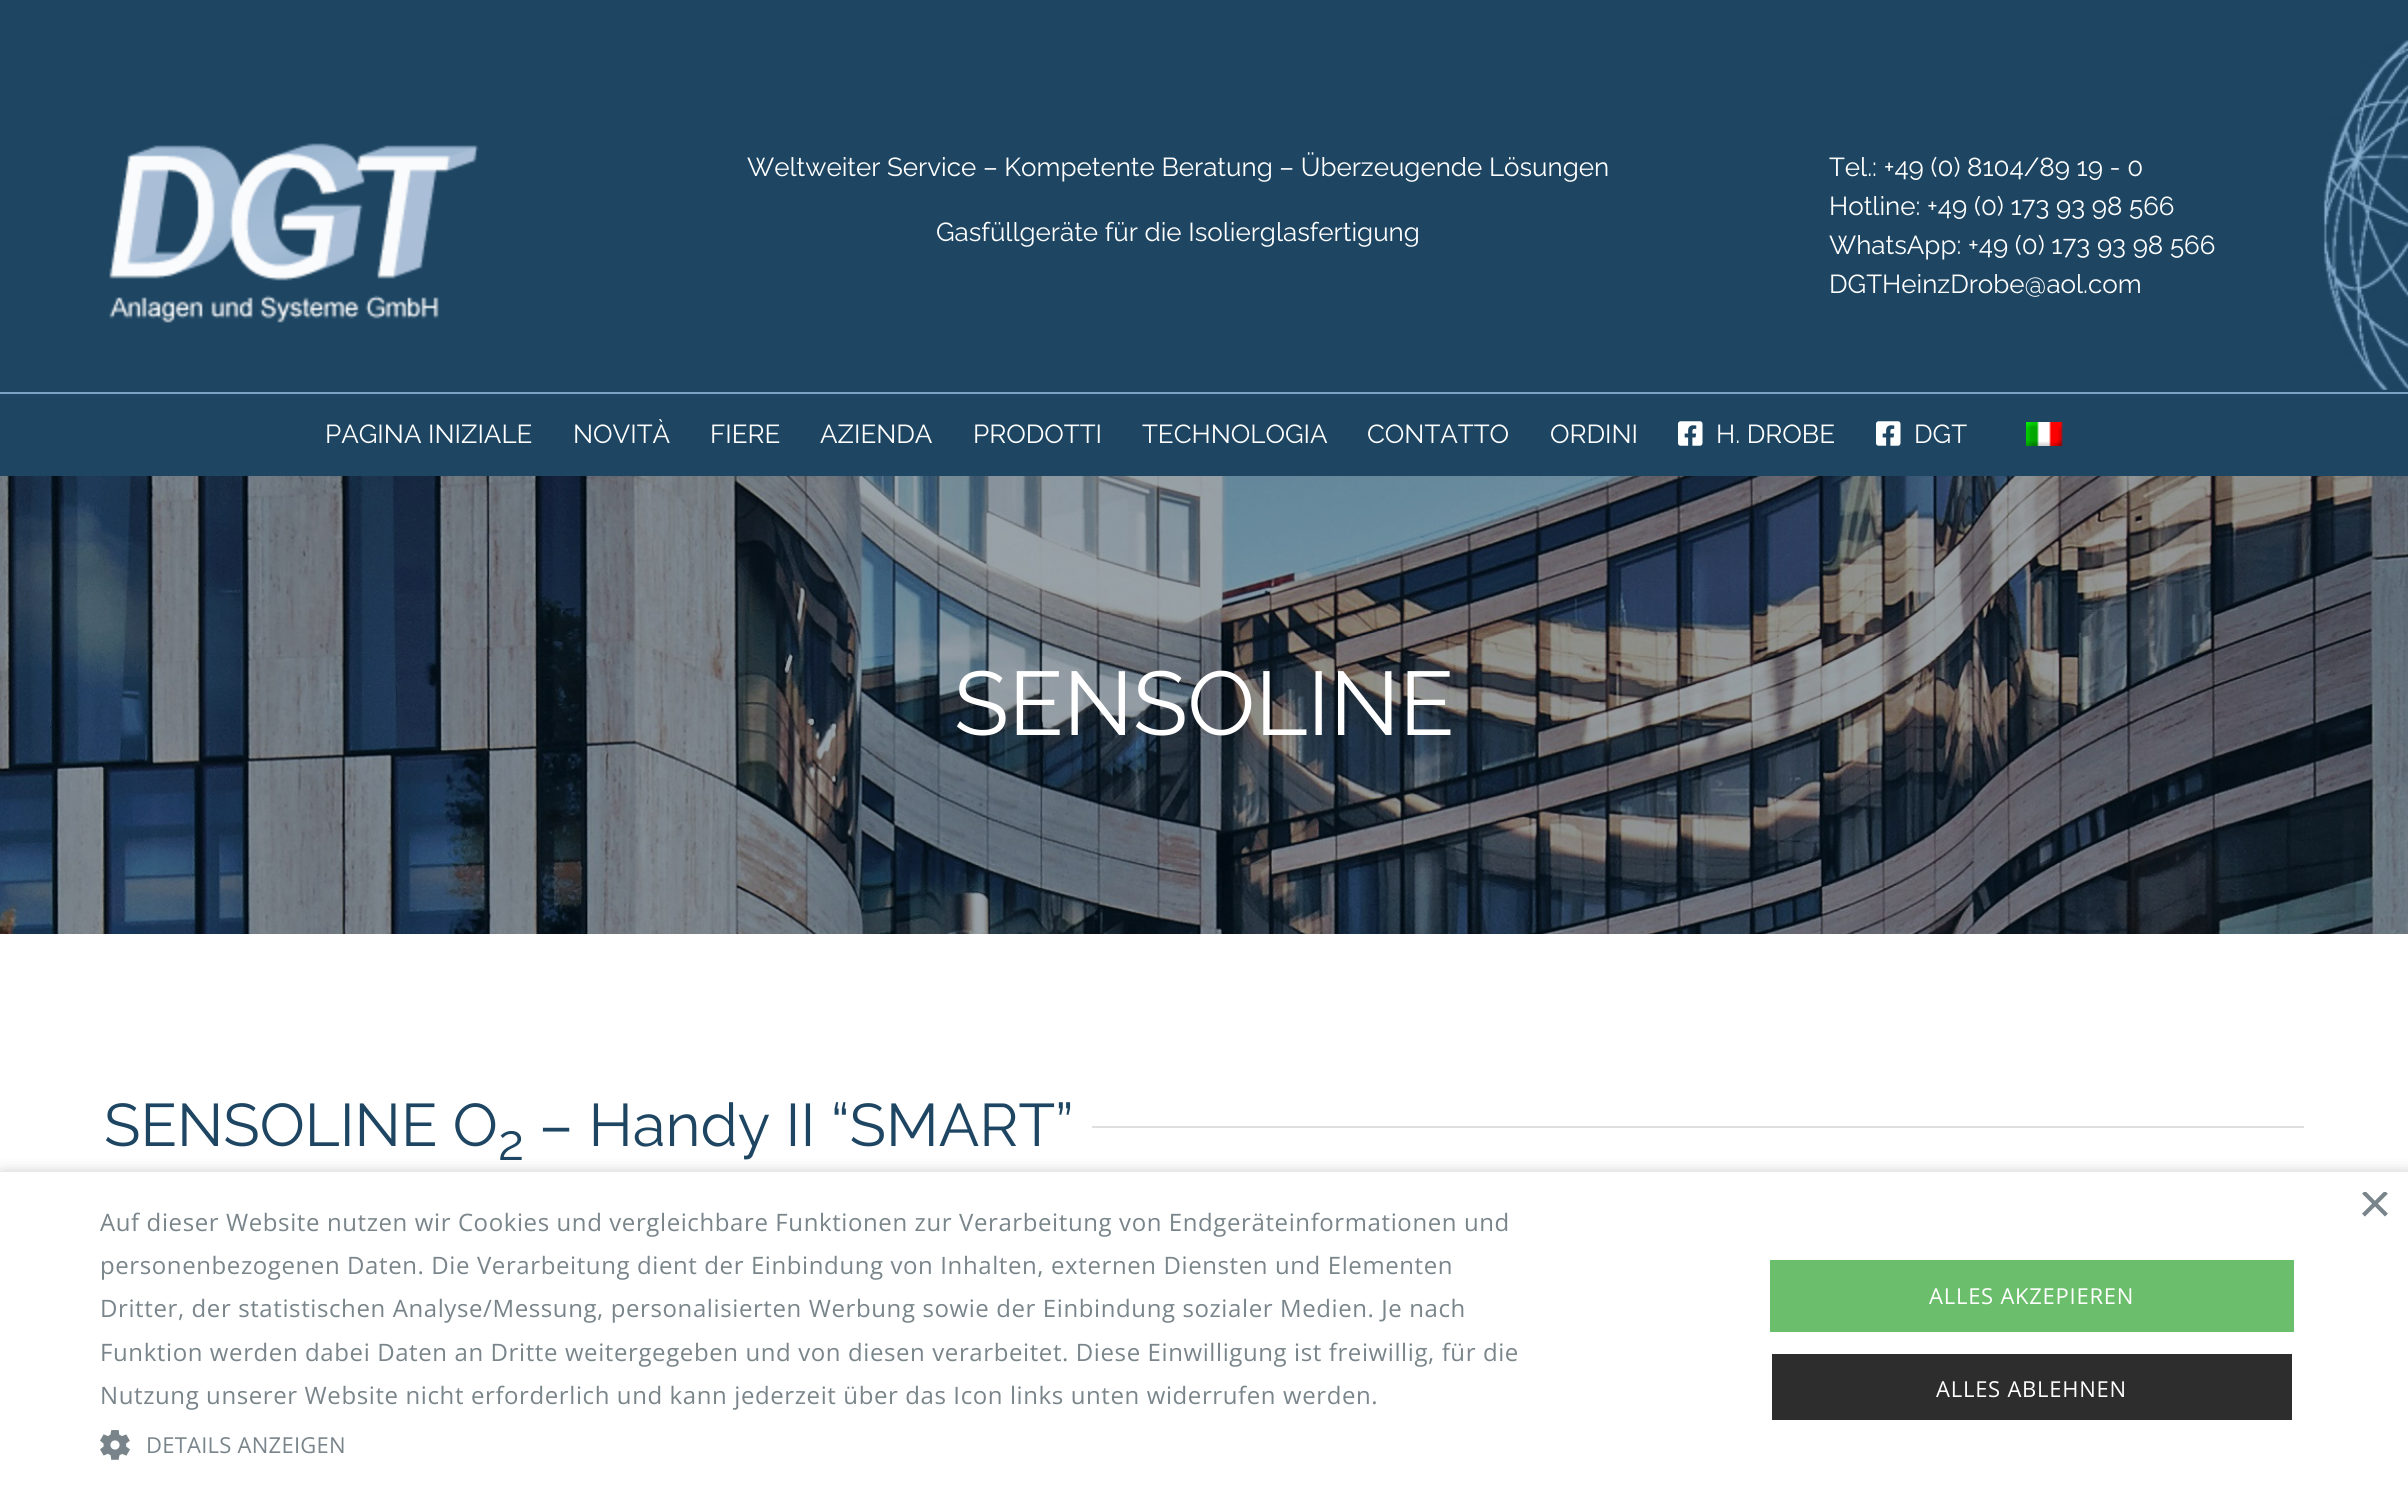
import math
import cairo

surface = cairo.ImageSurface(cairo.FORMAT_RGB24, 2408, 1512)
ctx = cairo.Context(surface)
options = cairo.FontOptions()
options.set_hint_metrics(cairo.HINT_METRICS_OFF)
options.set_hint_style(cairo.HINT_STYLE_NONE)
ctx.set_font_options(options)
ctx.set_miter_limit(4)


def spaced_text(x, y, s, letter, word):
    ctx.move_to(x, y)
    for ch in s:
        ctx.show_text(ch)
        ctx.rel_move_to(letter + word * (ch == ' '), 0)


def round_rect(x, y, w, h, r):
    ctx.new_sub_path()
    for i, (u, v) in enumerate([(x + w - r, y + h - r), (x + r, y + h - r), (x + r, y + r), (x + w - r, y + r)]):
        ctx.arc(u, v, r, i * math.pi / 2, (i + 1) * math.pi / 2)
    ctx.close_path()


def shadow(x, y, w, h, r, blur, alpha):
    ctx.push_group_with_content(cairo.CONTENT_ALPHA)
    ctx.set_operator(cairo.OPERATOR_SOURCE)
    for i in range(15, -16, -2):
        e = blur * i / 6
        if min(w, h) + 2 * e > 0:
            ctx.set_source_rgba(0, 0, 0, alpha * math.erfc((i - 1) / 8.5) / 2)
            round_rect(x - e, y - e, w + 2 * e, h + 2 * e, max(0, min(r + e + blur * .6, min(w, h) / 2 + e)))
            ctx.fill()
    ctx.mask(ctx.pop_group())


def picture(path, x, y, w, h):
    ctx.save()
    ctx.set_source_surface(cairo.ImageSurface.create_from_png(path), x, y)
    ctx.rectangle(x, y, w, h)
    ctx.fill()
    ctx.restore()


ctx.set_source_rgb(1, 1, 1)
ctx.paint()
ctx.set_source_rgb(0.118, 0.275, 0.388)
ctx.rectangle(0, 0, 2408, 392)
ctx.fill()
picture("img1.png", 2323, 40, 85, 350)
picture("img2.png", 109, 143, 370, 180)
ctx.select_font_face("Raleway")
ctx.set_font_size(26)
ctx.set_source_rgb(1, 1, 1)
ctx.move_to(747, 176)
ctx.show_text("Weltweiter Service – Kompetente Beratung – Überzeugende Lösungen")
ctx.move_to(936, 241)
ctx.show_text("Gasfüllgeräte für die Isolierglasfertigung")
ctx.move_to(1829, 176)
ctx.show_text("Tel.: +49 (0) 8104/89 19 - 0")
ctx.move_to(1829, 215)
ctx.show_text("Hotline: +49 (0) 173 93 98 566")
ctx.move_to(1829, 254)
ctx.show_text("WhatsApp: +49 (0) 173 93 98 566")
ctx.move_to(1829, 293)
ctx.show_text("DGTHeinzDrobe@aol.com")
ctx.set_source_rgb(0.118, 0.275, 0.388)
ctx.rectangle(0, 394, 2408, 82)
ctx.fill()
ctx.set_source_rgb(0.482, 0.635, 0.765)
ctx.rectangle(0, 392, 2408, 2)
ctx.fill()
ctx.set_source_rgb(1, 1, 1)
ctx.move_to(325, 443)
ctx.show_text("PAGINA INIZIALE")
ctx.move_to(573, 443)
ctx.show_text("NOVITÀ")
ctx.move_to(710, 443)
ctx.show_text("FIERE")
ctx.move_to(820, 443)
ctx.show_text("AZIENDA")
ctx.move_to(973, 443)
ctx.show_text("PRODOTTI")
ctx.move_to(1142, 443)
ctx.show_text("TECHNOLOGIA")
ctx.move_to(1367, 443)
ctx.show_text("CONTATTO")
ctx.move_to(1550, 443)
ctx.show_text("ORDINI")
picture("img3.png", 1678, 421, 25, 25)
ctx.move_to(1716, 443)
ctx.show_text("H. DROBE")
picture("img3.png", 1876, 421, 25, 25)
ctx.move_to(1914, 443)
ctx.show_text("DGT")
picture("img4.png", 2026, 422, 37, 24)
picture("img5.png", 0, 476, 2408, 458)
ctx.set_font_size(90)
ctx.move_to(954, 735)
ctx.show_text("SENSOLINE")
ctx.set_font_size(60)
ctx.set_source_rgb(0.118, 0.275, 0.388)
ctx.move_to(104, 1146)
ctx.show_text("SENSOLINE O")
ctx.set_font_size(50)
ctx.move_to(498, 1160)
ctx.show_text("2")
ctx.set_font_size(60)
ctx.move_to(539, 1146)
ctx.show_text("– Handy II “SMART”")
ctx.set_source_rgb(0.878, 0.871, 0.871)
ctx.rectangle(1092, 1126, 1212, 2)
ctx.fill()
ctx.set_source_rgb(0, 0, 0)
shadow(2, 1176, 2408, 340, 0, 8, 0.35)
ctx.set_source_rgb(1, 1, 1)
ctx.rectangle(0, 1172, 2408, 340)
ctx.fill()
ctx.save()
ctx.rectangle(2358, 1192, 30, 30)
ctx.clip()
ctx.select_font_face("Liberation Sans")
ctx.set_font_size(58)
ctx.set_source_rgb(0.475, 0.522, 0.541)
ctx.move_to(2358, 1223)
ctx.show_text("×")
ctx.restore()
ctx.select_font_face("Open Sans")
ctx.set_font_size(24)
ctx.set_source_rgb(0.475, 0.522, 0.541)
spaced_text(100, 1231, "Auf dieser Website nutzen wir Cookies und vergleichbare Funktionen zur Verarbeitung von Endgeräteinformationen und", 0.6, 0)
spaced_text(100, 1274, "personenbezogenen Daten. Die Verarbeitung dient der Einbindung von Inhalten, externen Diensten und Elementen", 0.6, 0)
spaced_text(100, 1317, "Dritter, der statistischen Analyse/Messung, personalisierten Werbung sowie der Einbindung sozialer Medien. Je nach", 0.6, 0)
spaced_text(100, 1361, "Funktion werden dabei Daten an Dritte weitergegeben und von diesen verarbeitet. Diese Einwilligung ist freiwillig, für die", 0.6, 0)
spaced_text(100, 1404, "Nutzung unserer Website nicht erforderlich und kann jederzeit über das Icon links unten widerrufen werden.", 0.6, 0)
picture("img6.png", 100, 1430, 30, 30)
ctx.set_font_size(22)
spaced_text(146, 1453, "DETAILS ANZEIGEN", 0.25, 0)
ctx.set_source_rgb(0.42, 0.745, 0.42)
ctx.rectangle(1770, 1260, 524, 72)
ctx.fill()
ctx.set_source_rgb(1, 1, 1)
spaced_text(1929, 1304, "ALLES AKZEPIEREN", 0.75, 0)
ctx.set_source_rgb(0.176, 0.176, 0.176)
ctx.rectangle(1772, 1354, 520, 66)
ctx.fill()
ctx.set_source_rgb(1, 1, 1)
spaced_text(1936, 1397, "ALLES ABLEHNEN", 0.75, 0)
surface.write_to_png("page.png")
